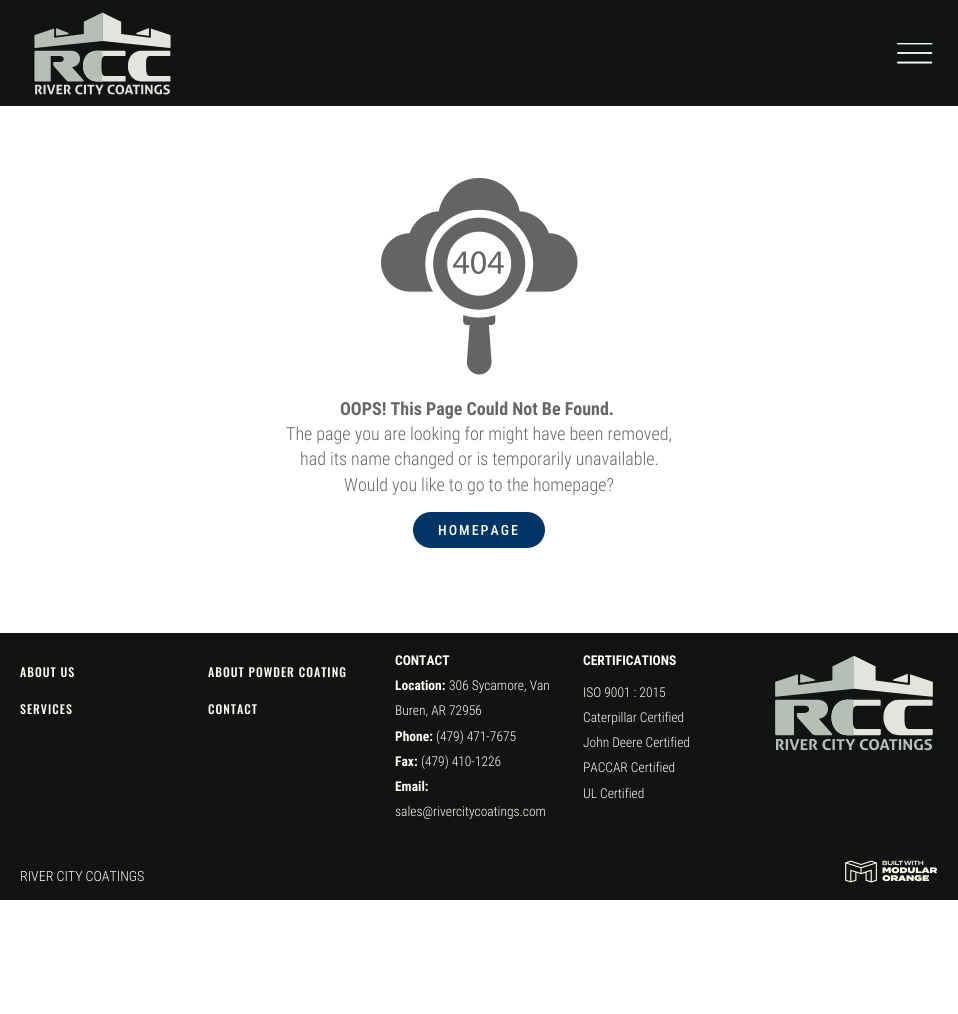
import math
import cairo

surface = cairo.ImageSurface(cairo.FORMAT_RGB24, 958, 1014)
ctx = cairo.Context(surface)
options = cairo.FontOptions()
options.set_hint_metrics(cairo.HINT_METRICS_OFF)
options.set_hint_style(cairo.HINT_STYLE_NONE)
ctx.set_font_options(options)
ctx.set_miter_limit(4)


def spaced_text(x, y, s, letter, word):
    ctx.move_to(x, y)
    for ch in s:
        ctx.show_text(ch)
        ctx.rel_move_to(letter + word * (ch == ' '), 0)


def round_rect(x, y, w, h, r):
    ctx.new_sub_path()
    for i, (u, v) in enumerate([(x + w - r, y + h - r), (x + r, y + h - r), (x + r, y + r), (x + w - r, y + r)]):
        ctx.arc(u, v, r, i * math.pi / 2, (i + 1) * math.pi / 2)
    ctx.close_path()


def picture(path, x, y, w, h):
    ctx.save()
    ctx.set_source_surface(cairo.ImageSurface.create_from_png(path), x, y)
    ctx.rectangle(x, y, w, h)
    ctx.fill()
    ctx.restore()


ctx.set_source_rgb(1, 1, 1)
ctx.paint()
ctx.set_source_rgb(0.071, 0.075, 0.075)
ctx.rectangle(0, 0, 958, 106)
ctx.fill()
picture("img1.png", 34, 12, 137, 83)
picture("img2.png", 897, 43, 36, 21)
picture("img3.png", 381, 178, 197, 197)
ctx.select_font_face("Roboto Condensed", cairo.FONT_SLANT_NORMAL, cairo.FONT_WEIGHT_BOLD)
ctx.set_font_size(18)
ctx.set_source_rgb(0.4, 0.4, 0.4)
ctx.move_to(340, 415)
ctx.show_text("OOPS! This Page Could Not Be Found.")
ctx.select_font_face("Roboto Condensed Light")
ctx.move_to(286, 440)
ctx.show_text("The page you are looking for might have been removed,")
ctx.move_to(300, 465)
ctx.show_text("had its name changed or is temporarily unavailable.")
ctx.move_to(344, 491)
ctx.show_text("Would you like to go to the homepage?")
ctx.set_source_rgb(0, 0.208, 0.4)
round_rect(413, 512, 132, 36, 18)
ctx.fill()
ctx.select_font_face("Roboto Condensed Medium")
ctx.set_font_size(14)
ctx.set_source_rgb(0.992, 0.992, 0.949)
spaced_text(438, 535, "HOMEPAGE", 2, 0)
ctx.set_source_rgb(0.071, 0.075, 0.075)
ctx.rectangle(0, 633, 958, 267)
ctx.fill()
ctx.select_font_face("Oswald Medium")
ctx.set_font_size(12)
ctx.set_source_rgb(0.992, 0.992, 0.949)
spaced_text(20, 677, "ABOUT US", 1, 0)
spaced_text(20, 714, "SERVICES", 1, 0)
spaced_text(208, 677, "ABOUT POWDER COATING", 1, 0)
spaced_text(208, 714, "CONTACT", 1, 0)
ctx.select_font_face("Roboto Condensed", cairo.FONT_SLANT_NORMAL, cairo.FONT_WEIGHT_BOLD)
ctx.set_font_size(13.5)
ctx.move_to(395, 665)
ctx.show_text("CONTACT")
ctx.move_to(395, 690)
ctx.show_text("Location:")
ctx.select_font_face("Roboto Condensed Light")
ctx.move_to(449, 690)
ctx.show_text("306 Sycamore, Van")
ctx.move_to(395, 715)
ctx.show_text("Buren, AR 72956")
ctx.select_font_face("Roboto Condensed", cairo.FONT_SLANT_NORMAL, cairo.FONT_WEIGHT_BOLD)
ctx.move_to(395, 741)
ctx.show_text("Phone:")
ctx.select_font_face("Roboto Condensed Light")
ctx.move_to(436, 741)
ctx.show_text("(479) 471-7675")
ctx.select_font_face("Roboto Condensed", cairo.FONT_SLANT_NORMAL, cairo.FONT_WEIGHT_BOLD)
ctx.move_to(395, 766)
ctx.show_text("Fax:")
ctx.select_font_face("Roboto Condensed Light")
ctx.move_to(421, 766)
ctx.show_text("(479) 410-1226")
ctx.select_font_face("Roboto Condensed", cairo.FONT_SLANT_NORMAL, cairo.FONT_WEIGHT_BOLD)
ctx.move_to(395, 791)
ctx.show_text("Email:")
ctx.select_font_face("Roboto Condensed Light")
ctx.move_to(395, 816)
ctx.show_text("sales@rivercitycoatings.com")
ctx.select_font_face("Roboto Condensed", cairo.FONT_SLANT_NORMAL, cairo.FONT_WEIGHT_BOLD)
ctx.move_to(583, 665)
ctx.show_text("CERTIFICATIONS")
ctx.select_font_face("Roboto Condensed Light")
ctx.move_to(583, 697)
ctx.show_text("ISO 9001 : 2015")
ctx.move_to(583, 722)
ctx.show_text("Caterpillar Certified")
ctx.move_to(583, 747)
ctx.show_text("John Deere Certified")
ctx.move_to(583, 772)
ctx.show_text("PACCAR Certified")
ctx.move_to(583, 798)
ctx.show_text("UL Certified")
picture("img4.png", 775, 655, 158, 96)
ctx.set_font_size(14)
ctx.move_to(20, 881)
ctx.show_text("RIVER CITY COATINGS")
picture("img5.png", 845, 860, 92, 23)
surface.write_to_png("page.png")
